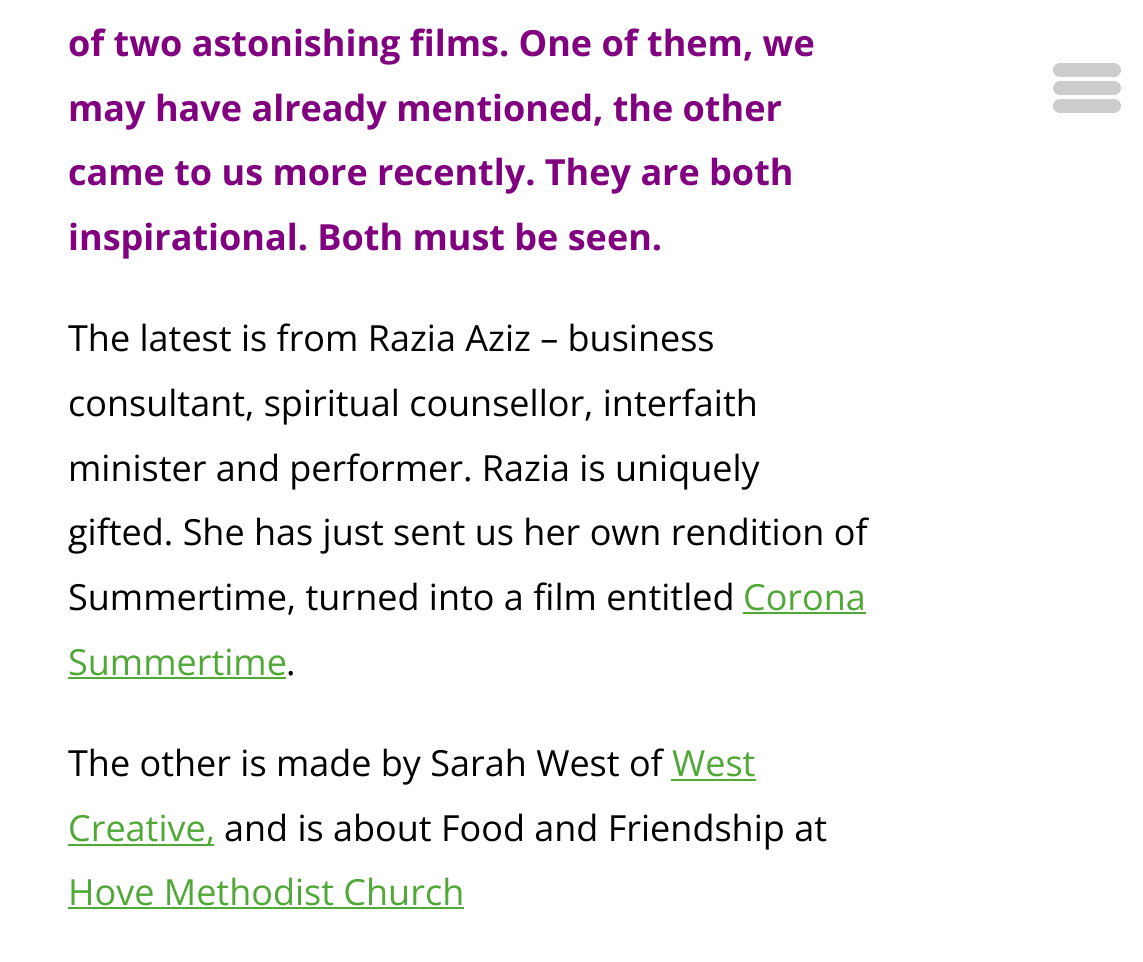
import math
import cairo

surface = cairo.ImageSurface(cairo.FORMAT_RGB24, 1143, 962)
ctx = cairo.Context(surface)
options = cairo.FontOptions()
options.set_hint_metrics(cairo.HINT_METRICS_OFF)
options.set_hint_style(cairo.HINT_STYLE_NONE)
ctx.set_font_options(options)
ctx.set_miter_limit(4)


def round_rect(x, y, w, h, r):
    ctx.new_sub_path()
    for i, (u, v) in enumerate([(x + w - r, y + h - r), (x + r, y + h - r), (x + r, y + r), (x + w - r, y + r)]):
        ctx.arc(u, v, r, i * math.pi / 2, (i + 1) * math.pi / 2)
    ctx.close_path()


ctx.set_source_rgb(1, 1, 1)
ctx.paint()
ctx.select_font_face("Open Sans", cairo.FONT_SLANT_NORMAL, cairo.FONT_WEIGHT_BOLD)
ctx.set_font_size(36)
ctx.set_source_rgb(0.502, 0, 0.502)
ctx.move_to(68, 56)
ctx.show_text("of two astonishing films. One of them, we")
ctx.move_to(68, 121)
ctx.show_text("may have already mentioned, the other")
ctx.move_to(68, 185)
ctx.show_text("came to us more recently. They are both")
ctx.move_to(68, 250)
ctx.show_text("inspirational. Both must be seen.")
ctx.select_font_face("Open Sans")
ctx.set_source_rgb(0, 0, 0)
ctx.move_to(68, 351)
ctx.show_text("The latest is from Razia Aziz – business")
ctx.move_to(68, 416)
ctx.show_text("consultant, spiritual counsellor, interfaith")
ctx.move_to(68, 481)
ctx.show_text("minister and performer. Razia is uniquely")
ctx.move_to(68, 545)
ctx.show_text("gifted. She has just sent us her own rendition of")
ctx.move_to(68, 610)
ctx.show_text("Summertime, turned into a film entitled")
ctx.set_source_rgb(0.314, 0.659, 0.216)
ctx.move_to(743, 610)
ctx.show_text("Corona")
ctx.rectangle(743, 612, 123, 2)
ctx.fill()
ctx.move_to(68, 675)
ctx.show_text("Summertime")
ctx.rectangle(68, 677, 218, 2)
ctx.fill()
ctx.set_source_rgb(0, 0, 0)
ctx.move_to(286, 675)
ctx.show_text(".")
ctx.move_to(68, 776)
ctx.show_text("The other is made by Sarah West of")
ctx.set_source_rgb(0.314, 0.659, 0.216)
ctx.move_to(672, 776)
ctx.show_text("West")
ctx.rectangle(671, 779, 85, 2)
ctx.fill()
ctx.rectangle(68, 844, 146, 2)
ctx.fill()
ctx.move_to(68, 841)
ctx.show_text("Creative,")
ctx.set_source_rgb(0, 0, 0)
ctx.move_to(224, 841)
ctx.show_text("and is about Food and Friendship at")
ctx.set_source_rgb(0.314, 0.659, 0.216)
ctx.move_to(68, 905)
ctx.show_text("Hove Methodist Church")
ctx.rectangle(68, 907, 396, 2)
ctx.fill()
ctx.set_source_rgb(0.8, 0.8, 0.8)
round_rect(1053, 63, 68, 14, 7)
ctx.fill()
round_rect(1053, 81, 68, 14, 7)
ctx.fill()
round_rect(1053, 99, 68, 14, 7)
ctx.fill()
surface.write_to_png("page.png")
